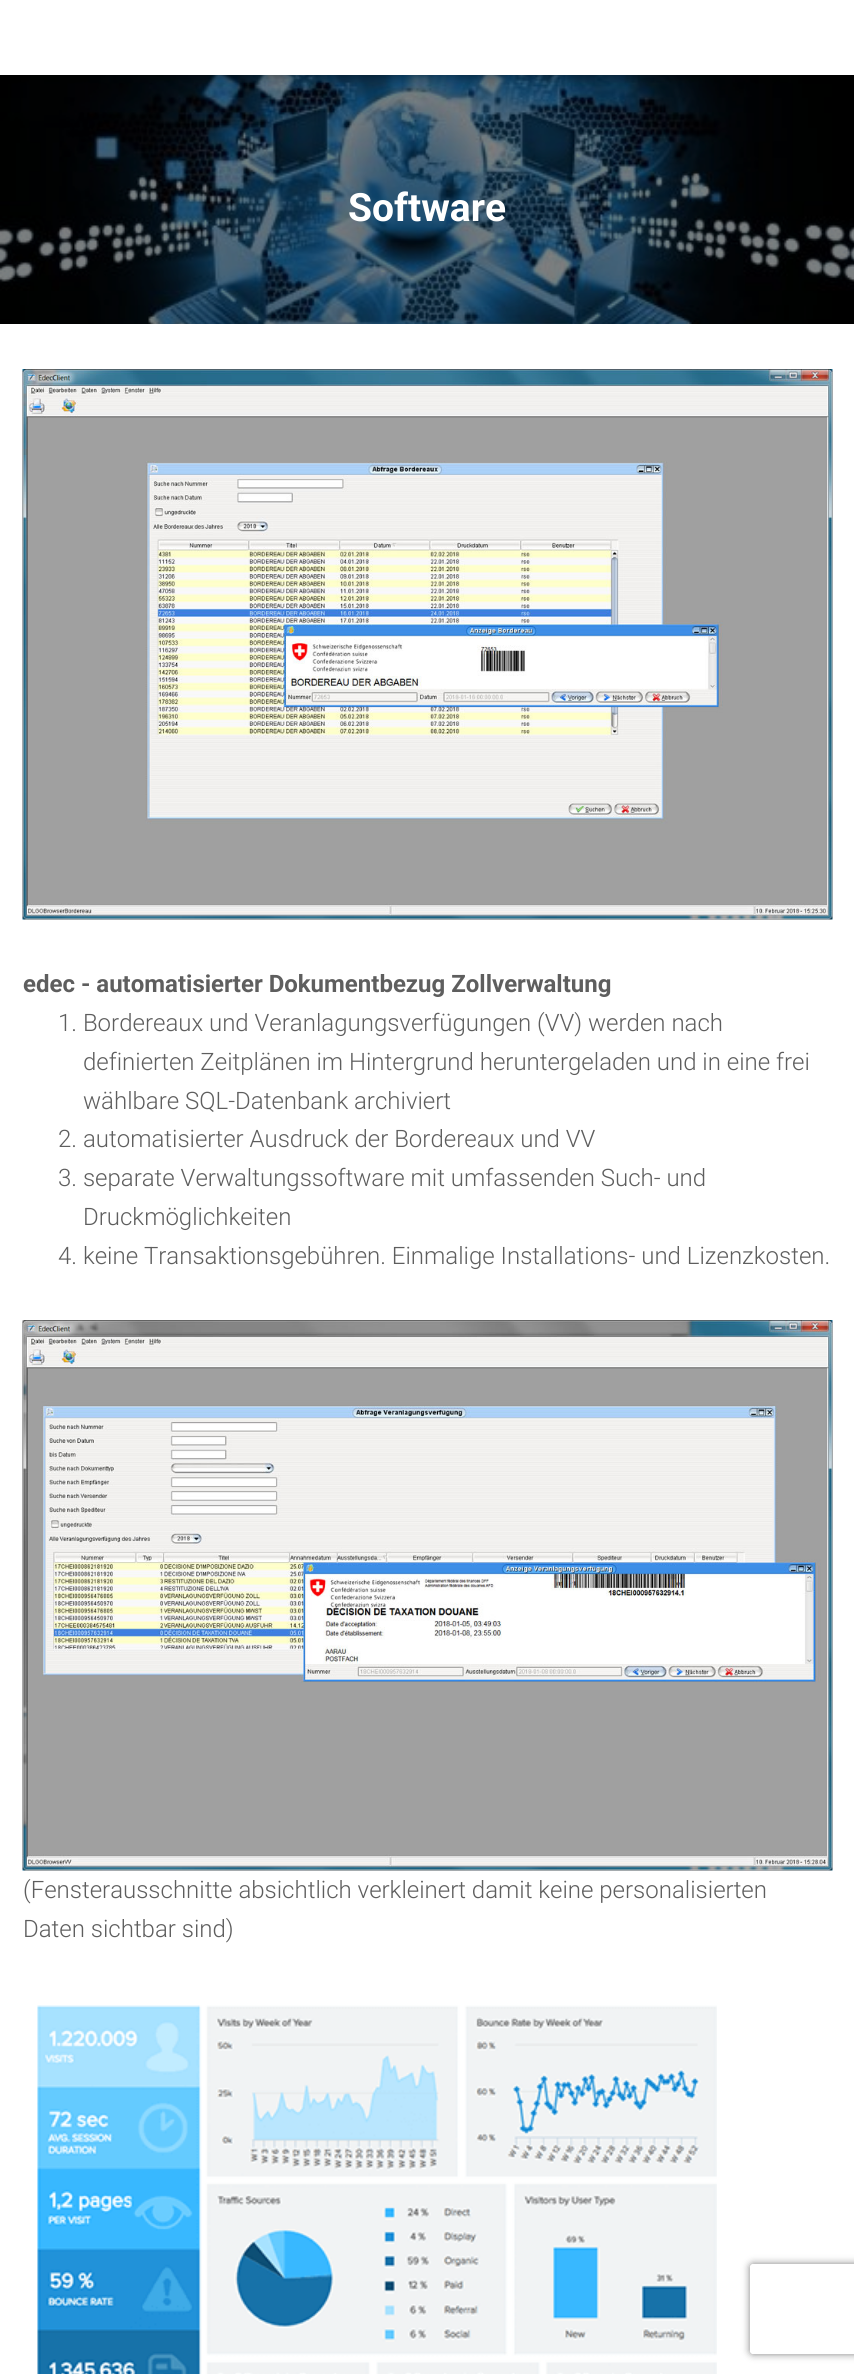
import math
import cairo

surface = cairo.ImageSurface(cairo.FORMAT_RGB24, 854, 2374)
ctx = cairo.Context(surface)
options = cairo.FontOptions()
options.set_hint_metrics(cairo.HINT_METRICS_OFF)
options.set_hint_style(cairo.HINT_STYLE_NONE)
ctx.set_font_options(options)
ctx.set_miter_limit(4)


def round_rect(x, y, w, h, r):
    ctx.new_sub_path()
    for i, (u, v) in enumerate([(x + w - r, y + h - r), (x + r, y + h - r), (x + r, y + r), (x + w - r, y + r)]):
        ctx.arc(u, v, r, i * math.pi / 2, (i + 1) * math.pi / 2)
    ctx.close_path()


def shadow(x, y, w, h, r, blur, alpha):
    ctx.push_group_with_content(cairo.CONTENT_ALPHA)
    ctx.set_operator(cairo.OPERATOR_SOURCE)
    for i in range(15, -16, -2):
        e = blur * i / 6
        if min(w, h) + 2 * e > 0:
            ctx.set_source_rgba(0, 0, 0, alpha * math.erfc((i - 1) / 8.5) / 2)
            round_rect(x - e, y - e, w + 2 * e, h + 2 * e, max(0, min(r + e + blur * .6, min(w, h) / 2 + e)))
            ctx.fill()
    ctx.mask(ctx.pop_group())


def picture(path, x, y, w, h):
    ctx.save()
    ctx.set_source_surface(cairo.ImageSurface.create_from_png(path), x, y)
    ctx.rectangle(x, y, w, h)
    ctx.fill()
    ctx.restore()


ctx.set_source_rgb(1, 1, 1)
ctx.paint()
picture("img1.png", 0, 75, 854, 249)
ctx.set_source_rgb(0, 0, 0)
shadow(3, 9, 849, 69, 0, 4, 0.1)
shadow(0, 2, 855, 75, 0, 7.5, 0.12)
shadow(9, 11, 837, 57, 0, 7.5, 0.42)
ctx.set_source_rgb(1, 1, 1)
ctx.rectangle(0, 0, 854, 75)
ctx.fill()
ctx.select_font_face("Roboto", cairo.FONT_SLANT_NORMAL, cairo.FONT_WEIGHT_BOLD)
ctx.set_font_size(39)
ctx.move_to(348, 221)
ctx.show_text("Software")
ctx.set_source_rgb(0, 0, 0)
shadow(-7, 326, 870, 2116, 0, 22.5, 0.12)
ctx.set_source_rgb(1, 1, 1)
ctx.rectangle(0, 324, 854, 2050)
ctx.fill()
picture("img2.png", 22, 369, 811, 551)
ctx.set_font_size(24)
ctx.set_source_rgb(0.369, 0.369, 0.369)
ctx.move_to(23, 992)
ctx.show_text("edec - automatisierter Dokumentbezug Zollverwaltung")
ctx.select_font_face("Roboto Light")
ctx.move_to(58, 1031)
ctx.show_text("1. Bordereaux und Veranlagungsverfügungen (VV) werden nach")
ctx.move_to(83, 1070)
ctx.show_text("definierten Zeitplänen im Hintergrund heruntergeladen und in eine frei")
ctx.move_to(83, 1109)
ctx.show_text("wählbare SQL-Datenbank archiviert")
ctx.move_to(58, 1147)
ctx.show_text("2. automatisierter Ausdruck der Bordereaux und VV")
ctx.move_to(58, 1186)
ctx.show_text("3. separate Verwaltungssoftware mit umfassenden Such- und")
ctx.move_to(83, 1225)
ctx.show_text("Druckmöglichkeiten")
ctx.move_to(58, 1264)
ctx.show_text("4. keine Transaktionsgebühren. Einmalige Installations- und Lizenzkosten.")
picture("img3.png", 22, 1320, 811, 551)
ctx.move_to(23, 1898)
ctx.show_text("(Fensterausschnitte absichtlich verkleinert damit keine personalisierten")
ctx.move_to(23, 1937)
ctx.show_text("Daten sichtbar sind)")
picture("img4.png", 37, 2005, 680, 369)
ctx.save()
ctx.set_fill_rule(cairo.FILL_RULE_EVEN_ODD)
ctx.new_path()
ctx.move_to(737, 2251)
ctx.line_to(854, 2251)
ctx.line_to(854, 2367)
ctx.line_to(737, 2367)
ctx.close_path()
ctx.move_to(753, 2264)
ctx.line_to(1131, 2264)
ctx.curve_to(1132.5, 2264, 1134, 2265.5, 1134, 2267)
ctx.line_to(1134, 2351)
ctx.curve_to(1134, 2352.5, 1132.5, 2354, 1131, 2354)
ctx.line_to(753, 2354)
ctx.curve_to(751.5, 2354, 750, 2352.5, 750, 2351)
ctx.line_to(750, 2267)
ctx.curve_to(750, 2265.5, 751.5, 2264, 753, 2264)
ctx.close_path()
ctx.clip()
ctx.set_source_rgb(0.502, 0.502, 0.502)
shadow(750, 2264, 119, 90, 3, 4, 1)
ctx.restore()
surface.write_to_png("page.png")
